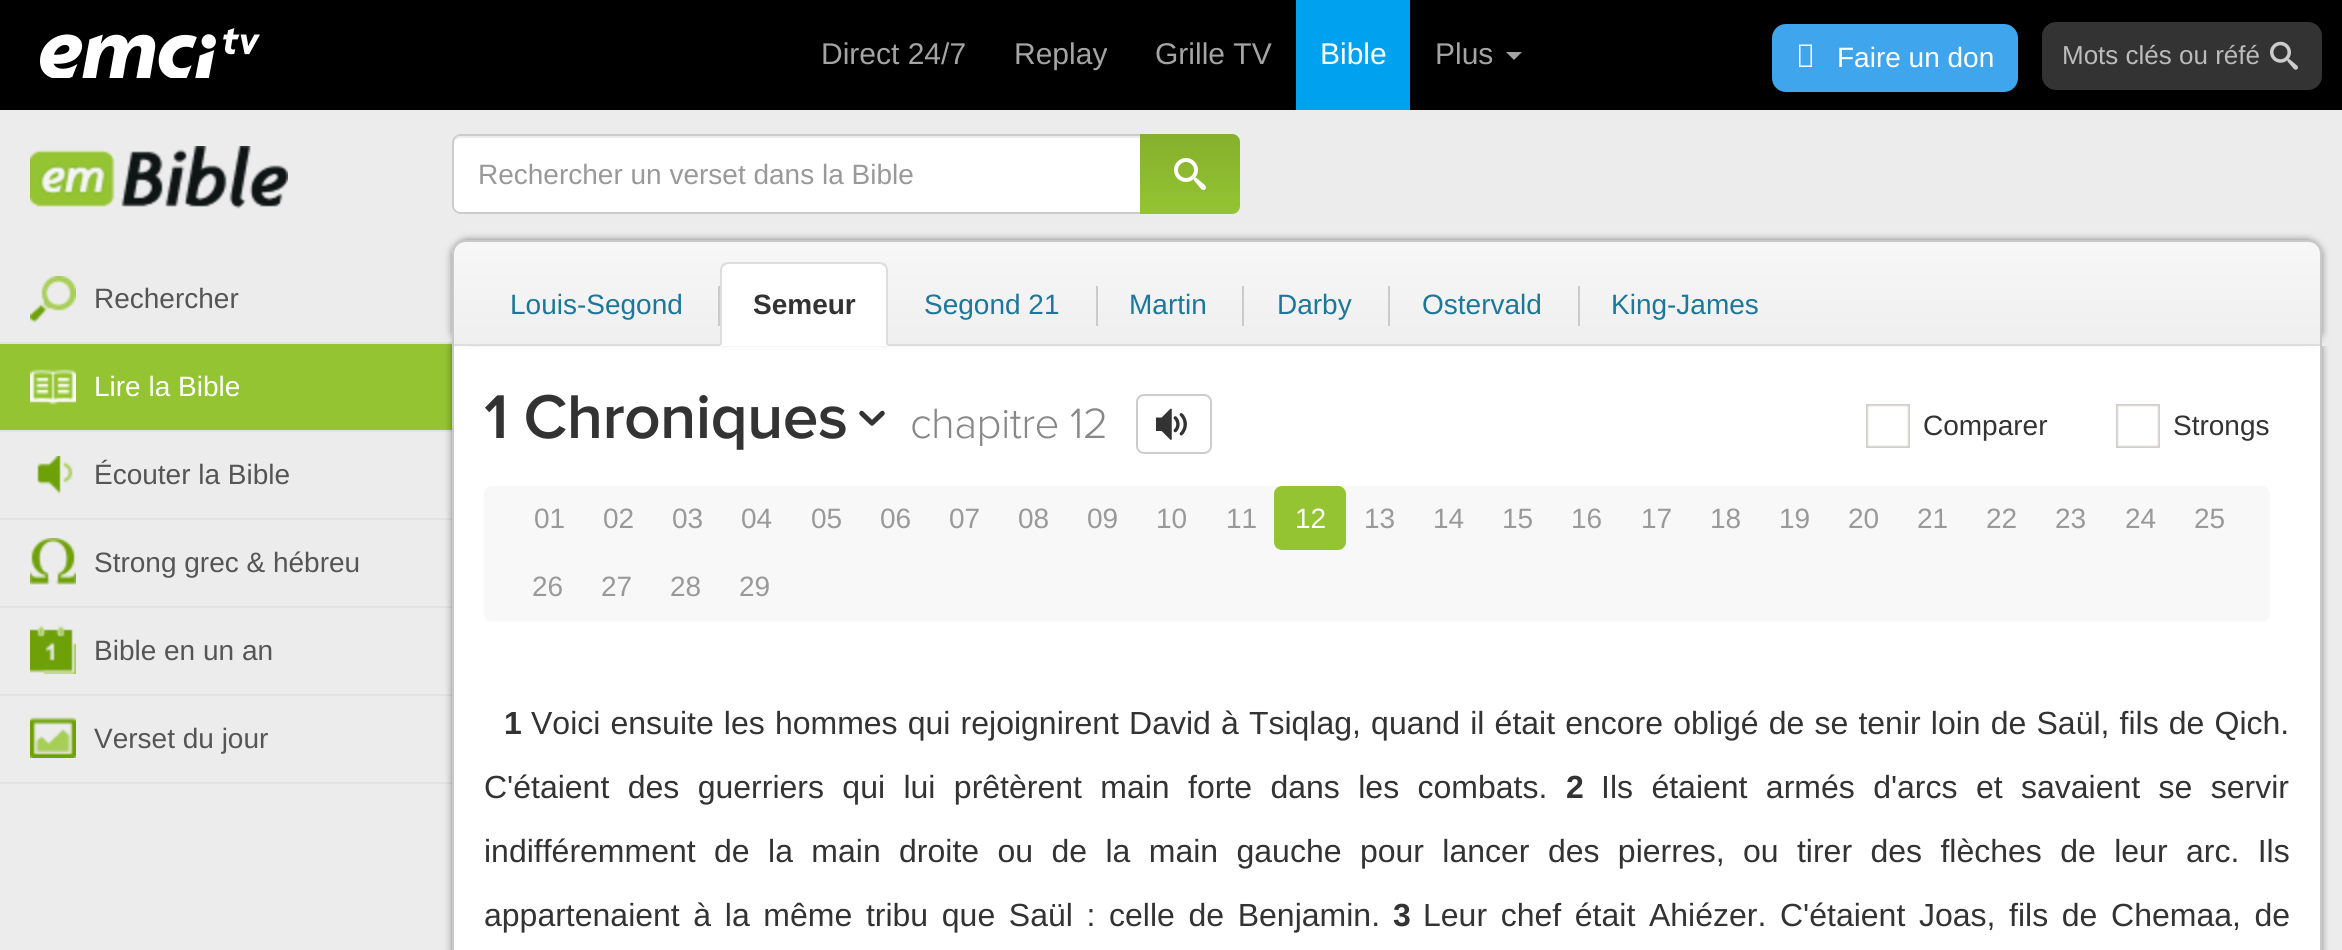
import math
import cairo

surface = cairo.ImageSurface(cairo.FORMAT_RGB24, 2342, 950)
ctx = cairo.Context(surface)
options = cairo.FontOptions()
options.set_hint_metrics(cairo.HINT_METRICS_OFF)
options.set_hint_style(cairo.HINT_STYLE_NONE)
ctx.set_font_options(options)
ctx.set_miter_limit(4)


def spaced_text(x, y, s, letter, word):
    ctx.move_to(x, y)
    for ch in s:
        ctx.show_text(ch)
        ctx.rel_move_to(letter + word * (ch == ' '), 0)


def round_rect(x, y, w, h, r):
    ctx.new_sub_path()
    for i, (u, v) in enumerate([(x + w - r, y + h - r), (x + r, y + h - r), (x + r, y + r), (x + w - r, y + r)]):
        ctx.arc(u, v, r, i * math.pi / 2, (i + 1) * math.pi / 2)
    ctx.close_path()


def shadow(x, y, w, h, r, blur, alpha):
    ctx.push_group_with_content(cairo.CONTENT_ALPHA)
    ctx.set_operator(cairo.OPERATOR_SOURCE)
    for i in range(15, -16, -2):
        e = blur * i / 6
        if min(w, h) + 2 * e > 0:
            ctx.set_source_rgba(0, 0, 0, alpha * math.erfc((i - 1) / 8.5) / 2)
            round_rect(x - e, y - e, w + 2 * e, h + 2 * e, max(0, min(r + e + blur * .6, min(w, h) / 2 + e)))
            ctx.fill()
    ctx.mask(ctx.pop_group())


def picture(path, x, y, w, h):
    ctx.save()
    ctx.set_source_surface(cairo.ImageSurface.create_from_png(path), x, y)
    ctx.rectangle(x, y, w, h)
    ctx.fill()
    ctx.restore()


ctx.set_source_rgb(0.929, 0.925, 0.925)
ctx.paint()
ctx.set_source_rgb(0, 0, 0)
ctx.rectangle(0, 0, 2342, 110)
ctx.fill()
picture("img1.png", 40, 28, 220, 50)
ctx.select_font_face("Liberation Sans")
ctx.set_font_size(30)
ctx.set_source_rgb(0.643, 0.643, 0.643)
ctx.move_to(821, 64)
ctx.show_text("Direct 24/7")
ctx.move_to(1014, 64)
ctx.show_text("Replay")
ctx.move_to(1155, 64)
ctx.show_text("Grille TV")
ctx.set_source_rgb(0, 0.635, 0.941)
ctx.rectangle(1296, 0, 114, 110)
ctx.fill()
ctx.set_source_rgb(1, 1, 1)
ctx.move_to(1320, 64)
ctx.show_text("Bible")
ctx.set_source_rgb(0.643, 0.643, 0.643)
ctx.move_to(1435, 64)
ctx.show_text("Plus")
ctx.new_path()
ctx.move_to(1506, 52)
ctx.line_to(1522, 52)
ctx.line_to(1514, 60)
ctx.close_path()
ctx.fill()
ctx.set_source_rgb(0.247, 0.647, 0.925)
round_rect(1772, 24, 246, 68, 14)
ctx.fill()
ctx.set_source_rgb(1, 1, 1)
ctx.new_path()
ctx.move_to(1799, 67)
ctx.line_to(1799, 44.5)
ctx.line_to(1812, 44.5)
ctx.line_to(1812, 67)
ctx.close_path()
ctx.move_to(1800.5, 65.5)
ctx.line_to(1810.5, 65.5)
ctx.line_to(1810.5, 46)
ctx.line_to(1800.5, 46)
ctx.close_path()
ctx.fill()
ctx.set_font_size(28)
ctx.move_to(1837, 67)
ctx.show_text("Faire un don")
ctx.set_source_rgb(0.2, 0.2, 0.2)
round_rect(2042, 22, 280, 68, 14)
ctx.fill()
ctx.set_font_size(26)
ctx.set_source_rgb(0.733, 0.733, 0.733)
ctx.move_to(2062, 64)
ctx.show_text("Mots clés ou réfé")
picture("img2.png", 2270, 41, 28, 29)
ctx.set_source_rgb(0.886, 0.886, 0.886)
ctx.rectangle(0, 342, 452, 2)
ctx.fill()
ctx.set_source_rgb(0.58, 0.769, 0.196)
ctx.rectangle(0, 344, 452, 86)
ctx.fill()
ctx.set_source_rgb(0.886, 0.886, 0.886)
ctx.rectangle(0, 430, 452, 2)
ctx.fill()
ctx.rectangle(0, 518, 452, 2)
ctx.fill()
ctx.rectangle(0, 606, 452, 2)
ctx.fill()
ctx.rectangle(0, 694, 452, 2)
ctx.fill()
ctx.rectangle(0, 782, 452, 2)
ctx.fill()
ctx.set_source_rgb(0, 0, 0)
shadow(464, 340, 1858, 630, 8, 4, 0.4)
shadow(452, 340, 1858, 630, 8, 4, 0.4)
shadow(458, 346, 1858, 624, 8, 4, 0.4)
ctx.set_source_rgb(1, 1, 1)
ctx.rectangle(454, 346, 1866, 604)
ctx.fill()
ctx.set_source_rgb(0.784, 0.784, 0.784)
ctx.set_fill_rule(cairo.FILL_RULE_EVEN_ODD)
ctx.new_path()
ctx.move_to(452, 334)
ctx.line_to(2322, 334)
ctx.line_to(2322, 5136)
ctx.curve_to(2322, 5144, 2316, 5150, 2308, 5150)
ctx.line_to(466, 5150)
ctx.curve_to(458, 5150, 452, 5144, 452, 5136)
ctx.close_path()
ctx.move_to(454, 334)
ctx.line_to(2320, 334)
ctx.line_to(2320, 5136)
ctx.curve_to(2320, 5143, 2315, 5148, 2308, 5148)
ctx.line_to(466, 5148)
ctx.curve_to(459, 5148, 454, 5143, 454, 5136)
ctx.close_path()
ctx.fill()
ctx.set_source_rgb(0.929, 0.925, 0.925)
ctx.rectangle(452, 331, 1877, 15)
ctx.fill()
ctx.set_source_rgb(1, 1, 1)
ctx.new_path()
ctx.move_to(460, 134)
ctx.line_to(1142, 134)
ctx.line_to(1142, 214)
ctx.line_to(460, 214)
ctx.curve_to(455.5, 214, 452, 210.5, 452, 206)
ctx.line_to(452, 142)
ctx.curve_to(452, 137.5, 455.5, 134, 460, 134)
ctx.close_path()
ctx.fill()
ctx.set_source_rgb(0.925, 0.925, 0.925)
ctx.set_fill_rule(cairo.FILL_RULE_WINDING)
ctx.new_path()
ctx.move_to(460, 138)
ctx.line_to(1142, 138)
ctx.line_to(1142, 136)
ctx.line_to(460, 136)
ctx.curve_to(457, 136, 454, 139, 454, 142)
ctx.line_to(454, 144)
ctx.curve_to(454, 141, 457, 138, 460, 138)
ctx.close_path()
ctx.fill()
ctx.set_source_rgb(0.8, 0.8, 0.8)
ctx.set_fill_rule(cairo.FILL_RULE_EVEN_ODD)
ctx.new_path()
ctx.move_to(460, 134)
ctx.line_to(1142, 134)
ctx.line_to(1142, 214)
ctx.line_to(460, 214)
ctx.curve_to(456, 214, 452, 210, 452, 206)
ctx.line_to(452, 142)
ctx.curve_to(452, 138, 456, 134, 460, 134)
ctx.close_path()
ctx.move_to(460, 136)
ctx.line_to(1142, 136)
ctx.line_to(1142, 212)
ctx.line_to(460, 212)
ctx.curve_to(457, 212, 454, 209, 454, 206)
ctx.line_to(454, 142)
ctx.curve_to(454, 139, 457, 136, 460, 136)
ctx.close_path()
ctx.fill()
ctx.set_font_size(28)
ctx.set_source_rgb(0.6, 0.6, 0.6)
ctx.move_to(478, 184)
ctx.show_text("Rechercher un verset dans la Bible")
gradient = cairo.LinearGradient(1190, 134, 1190, 214)
gradient.add_color_stop_rgba(0, 0.522, 0.69, 0.176, 1)
gradient.add_color_stop_rgba(1, 0.58, 0.769, 0.196, 1)
ctx.set_source(gradient)
ctx.new_path()
ctx.move_to(1140, 134)
ctx.line_to(1232, 134)
ctx.curve_to(1236.5, 134, 1240, 137.5, 1240, 142)
ctx.line_to(1240, 206)
ctx.curve_to(1240, 210.5, 1236.5, 214, 1232, 214)
ctx.line_to(1140, 214)
ctx.close_path()
ctx.fill()
picture("img3.png", 1174, 158, 32, 32)
ctx.set_source_rgb(0, 0, 0)
shadow(464, 246, 1858, 94, 8, 4, 0.4)
shadow(452, 246, 1858, 94, 8, 4, 0.4)
shadow(458, 240, 1858, 94, 8, 4, 0.4)
ctx.save()
ctx.set_fill_rule(cairo.FILL_RULE_WINDING)
ctx.new_path()
ctx.move_to(466, 240)
ctx.line_to(2308, 240)
ctx.curve_to(2315.5, 240, 2322, 246.5, 2322, 254)
ctx.line_to(2322, 346)
ctx.line_to(452, 346)
ctx.line_to(452, 254)
ctx.curve_to(452, 246.5, 458.5, 240, 466, 240)
ctx.close_path()
ctx.clip()
gradient = cairo.LinearGradient(1387, 242, 1387, 346)
gradient.add_color_stop_rgba(0, 0.969, 0.969, 0.969, 1)
gradient.add_color_stop_rgba(1, 0.937, 0.937, 0.937, 1)
ctx.set_source(gradient)
ctx.rectangle(452, 242, 1870, 102)
ctx.fill()
ctx.restore()
ctx.set_source_rgb(0.784, 0.784, 0.784)
ctx.new_path()
ctx.move_to(466, 240)
ctx.line_to(2308, 240)
ctx.curve_to(2316, 240, 2322, 246, 2322, 254)
ctx.line_to(2322, 346)
ctx.line_to(452, 346)
ctx.line_to(452, 254)
ctx.curve_to(452, 246, 458, 240, 466, 240)
ctx.close_path()
ctx.move_to(466, 242)
ctx.line_to(2308, 242)
ctx.curve_to(2315, 242, 2320, 247, 2320, 254)
ctx.line_to(2320, 346)
ctx.line_to(454, 346)
ctx.line_to(454, 254)
ctx.curve_to(454, 247, 459, 242, 466, 242)
ctx.close_path()
ctx.fill()
ctx.set_source_rgb(0.867, 0.867, 0.867)
ctx.rectangle(454, 344, 1866, 2)
ctx.fill()
ctx.set_source_rgb(0.11, 0.467, 0.6)
ctx.move_to(510, 314)
ctx.show_text("Louis-Segond")
ctx.set_source_rgb(0.796, 0.796, 0.796)
ctx.rectangle(718, 286, 2, 40)
ctx.fill()
ctx.set_source_rgb(1, 1, 1)
ctx.new_path()
ctx.move_to(728, 262)
ctx.line_to(880, 262)
ctx.curve_to(884.5, 262, 888, 265.5, 888, 270)
ctx.line_to(888, 346)
ctx.line_to(720, 346)
ctx.line_to(720, 270)
ctx.curve_to(720, 265.5, 723.5, 262, 728, 262)
ctx.close_path()
ctx.fill()
ctx.set_source_rgb(0.867, 0.867, 0.867)
ctx.set_fill_rule(cairo.FILL_RULE_WINDING)
ctx.new_path()
ctx.move_to(728, 262)
ctx.curve_to(726, 262, 724, 263, 722, 264)
ctx.line_to(724, 266)
ctx.line_to(727, 264)
ctx.line_to(881, 264)
ctx.line_to(884, 266)
ctx.line_to(886, 264)
ctx.curve_to(884, 263, 882, 262, 880, 262)
ctx.close_path()
ctx.fill()
ctx.new_path()
ctx.move_to(888, 346)
ctx.line_to(888, 270)
ctx.curve_to(888, 268, 887, 266, 886, 264)
ctx.line_to(884, 266)
ctx.line_to(886, 269)
ctx.line_to(886, 344)
ctx.close_path()
ctx.fill()
ctx.new_path()
ctx.move_to(720, 346)
ctx.line_to(722, 344)
ctx.line_to(722, 269)
ctx.line_to(724, 266)
ctx.line_to(722, 264)
ctx.curve_to(721, 266, 720, 268, 720, 270)
ctx.close_path()
ctx.fill()
ctx.select_font_face("Liberation Sans", cairo.FONT_SLANT_NORMAL, cairo.FONT_WEIGHT_BOLD)
ctx.set_source_rgb(0.2, 0.2, 0.2)
ctx.move_to(753, 314)
ctx.show_text("Semeur")
ctx.select_font_face("Liberation Sans")
ctx.set_source_rgb(0.11, 0.467, 0.6)
ctx.move_to(924, 314)
ctx.show_text("Segond 21")
ctx.set_source_rgb(0.796, 0.796, 0.796)
ctx.rectangle(1096, 286, 2, 40)
ctx.fill()
ctx.set_source_rgb(0.11, 0.467, 0.6)
ctx.move_to(1129, 314)
ctx.show_text("Martin")
ctx.set_source_rgb(0.796, 0.796, 0.796)
ctx.rectangle(1242, 286, 2, 40)
ctx.fill()
ctx.set_source_rgb(0.11, 0.467, 0.6)
ctx.move_to(1277, 314)
ctx.show_text("Darby")
ctx.set_source_rgb(0.796, 0.796, 0.796)
ctx.rectangle(1388, 286, 2, 40)
ctx.fill()
ctx.set_source_rgb(0.11, 0.467, 0.6)
ctx.move_to(1422, 314)
ctx.show_text("Ostervald")
ctx.set_source_rgb(0.796, 0.796, 0.796)
ctx.rectangle(1578, 286, 2, 40)
ctx.fill()
ctx.set_source_rgb(0.11, 0.467, 0.6)
ctx.move_to(1611, 314)
ctx.show_text("King-James")
picture("img4.png", 30, 146, 258, 63)
picture("img5.png", 30, 276, 46, 47)
ctx.set_source_rgb(0.333, 0.333, 0.333)
ctx.move_to(94, 308)
ctx.show_text("Rechercher")
picture("img6.png", 30, 369, 46, 36)
ctx.set_source_rgb(1, 1, 1)
ctx.move_to(94, 396)
ctx.show_text("Lire la Bible")
picture("img7.png", 37, 456, 36, 39)
ctx.set_source_rgb(0.333, 0.333, 0.333)
ctx.move_to(94, 484)
ctx.show_text("Écouter la Bible")
picture("img8.png", 30, 538, 46, 47)
ctx.move_to(94, 572)
ctx.show_text("Strong grec & hébreu")
picture("img9.png", 30, 625, 46, 49)
ctx.move_to(94, 660)
ctx.show_text("Bible en un an")
picture("img10.png", 30, 717, 46, 41)
ctx.move_to(94, 748)
ctx.show_text("Verset du jour")
ctx.select_font_face("Proxima Nova SemiBold")
ctx.set_font_size(64)
ctx.set_source_rgb(0.2, 0.2, 0.2)
spaced_text(484, 438, "1 Chroniques", -0.6, 0)
picture("img11.png", 859, 410, 26, 16)
ctx.select_font_face("Proxima Nova Light")
ctx.set_font_size(44)
ctx.set_source_rgb(0.533, 0.533, 0.533)
spaced_text(910, 438, "chapitre 12", -0.6, 0)
round_rect(1137, 395, 74, 58, 7)
ctx.set_source_rgb(0.8, 0.8, 0.8)
ctx.stroke()
picture("img12.png", 1156, 408, 31, 32)
picture("img13.png", 1866, 404, 44, 44)
ctx.select_font_face("Liberation Sans")
ctx.set_font_size(28)
ctx.set_source_rgb(0.2, 0.2, 0.2)
ctx.move_to(1923, 435)
ctx.show_text("Comparer")
picture("img13.png", 2116, 404, 44, 44)
ctx.move_to(2173, 435)
ctx.show_text("Strongs")
ctx.set_source_rgb(0.969, 0.969, 0.969)
round_rect(484, 486, 1786, 136, 8)
ctx.fill()
ctx.set_source_rgb(0.6, 0.6, 0.6)
ctx.move_to(534, 528)
ctx.show_text("01")
ctx.move_to(603, 528)
ctx.show_text("02")
ctx.move_to(672, 528)
ctx.show_text("03")
ctx.move_to(741, 528)
ctx.show_text("04")
ctx.move_to(811, 528)
ctx.show_text("05")
ctx.move_to(880, 528)
ctx.show_text("06")
ctx.move_to(949, 528)
ctx.show_text("07")
ctx.move_to(1018, 528)
ctx.show_text("08")
ctx.move_to(1087, 528)
ctx.show_text("09")
ctx.move_to(1156, 528)
ctx.show_text("10")
ctx.move_to(1226, 528)
ctx.show_text("11")
ctx.set_source_rgb(0.58, 0.769, 0.196)
round_rect(1274, 486, 72, 64, 8)
ctx.fill()
ctx.set_source_rgb(1, 1, 1)
ctx.move_to(1295, 528)
ctx.show_text("12")
ctx.set_source_rgb(0.6, 0.6, 0.6)
ctx.move_to(1364, 528)
ctx.show_text("13")
ctx.move_to(1433, 528)
ctx.show_text("14")
ctx.move_to(1502, 528)
ctx.show_text("15")
ctx.move_to(1571, 528)
ctx.show_text("16")
ctx.move_to(1641, 528)
ctx.show_text("17")
ctx.move_to(1710, 528)
ctx.show_text("18")
ctx.move_to(1779, 528)
ctx.show_text("19")
ctx.move_to(1848, 528)
ctx.show_text("20")
ctx.move_to(1917, 528)
ctx.show_text("21")
ctx.move_to(1986, 528)
ctx.show_text("22")
ctx.move_to(2055, 528)
ctx.show_text("23")
ctx.move_to(2125, 528)
ctx.show_text("24")
ctx.move_to(2194, 528)
ctx.show_text("25")
ctx.move_to(532, 596)
ctx.show_text("26")
ctx.move_to(601, 596)
ctx.show_text("27")
ctx.move_to(670, 596)
ctx.show_text("28")
ctx.move_to(739, 596)
ctx.show_text("29")
ctx.select_font_face("Liberation Sans", cairo.FONT_SLANT_NORMAL, cairo.FONT_WEIGHT_BOLD)
ctx.set_font_size(32)
ctx.set_source_rgb(0.2, 0.2, 0.2)
ctx.move_to(504, 734)
ctx.show_text("1")
ctx.select_font_face("Liberation Sans")
spaced_text(531, 734, "Voici ensuite les hommes qui rejoignirent David à Tsiqlag, quand il était encore obligé de se tenir loin de Saül, fils de Qich.", 0, 1.25)
spaced_text(484, 798, "C'étaient des guerriers qui lui prêtèrent main forte dans les combats.", 0, 9.5)
ctx.select_font_face("Liberation Sans", cairo.FONT_SLANT_NORMAL, cairo.FONT_WEIGHT_BOLD)
ctx.move_to(1566, 798)
ctx.show_text("2")
ctx.select_font_face("Liberation Sans")
spaced_text(1601, 798, "Ils étaient armés d'arcs et savaient se servir", 0, 9.5)
spaced_text(484, 862, "indifféremment de la main droite ou de la main gauche pour lancer des pierres, ou tirer des flèches de leur arc. Ils", 0, 9.5)
spaced_text(484, 926, "appartenaient à la même tribu que Saül : celle de Benjamin.", 0, 4.75)
ctx.select_font_face("Liberation Sans", cairo.FONT_SLANT_NORMAL, cairo.FONT_WEIGHT_BOLD)
ctx.move_to(1393, 926)
ctx.show_text("3")
ctx.select_font_face("Liberation Sans")
spaced_text(1423, 926, "Leur chef était Ahiézer. C'étaient Joas, fils de Chemaa, de", 0, 4.75)
surface.write_to_png("page.png")
